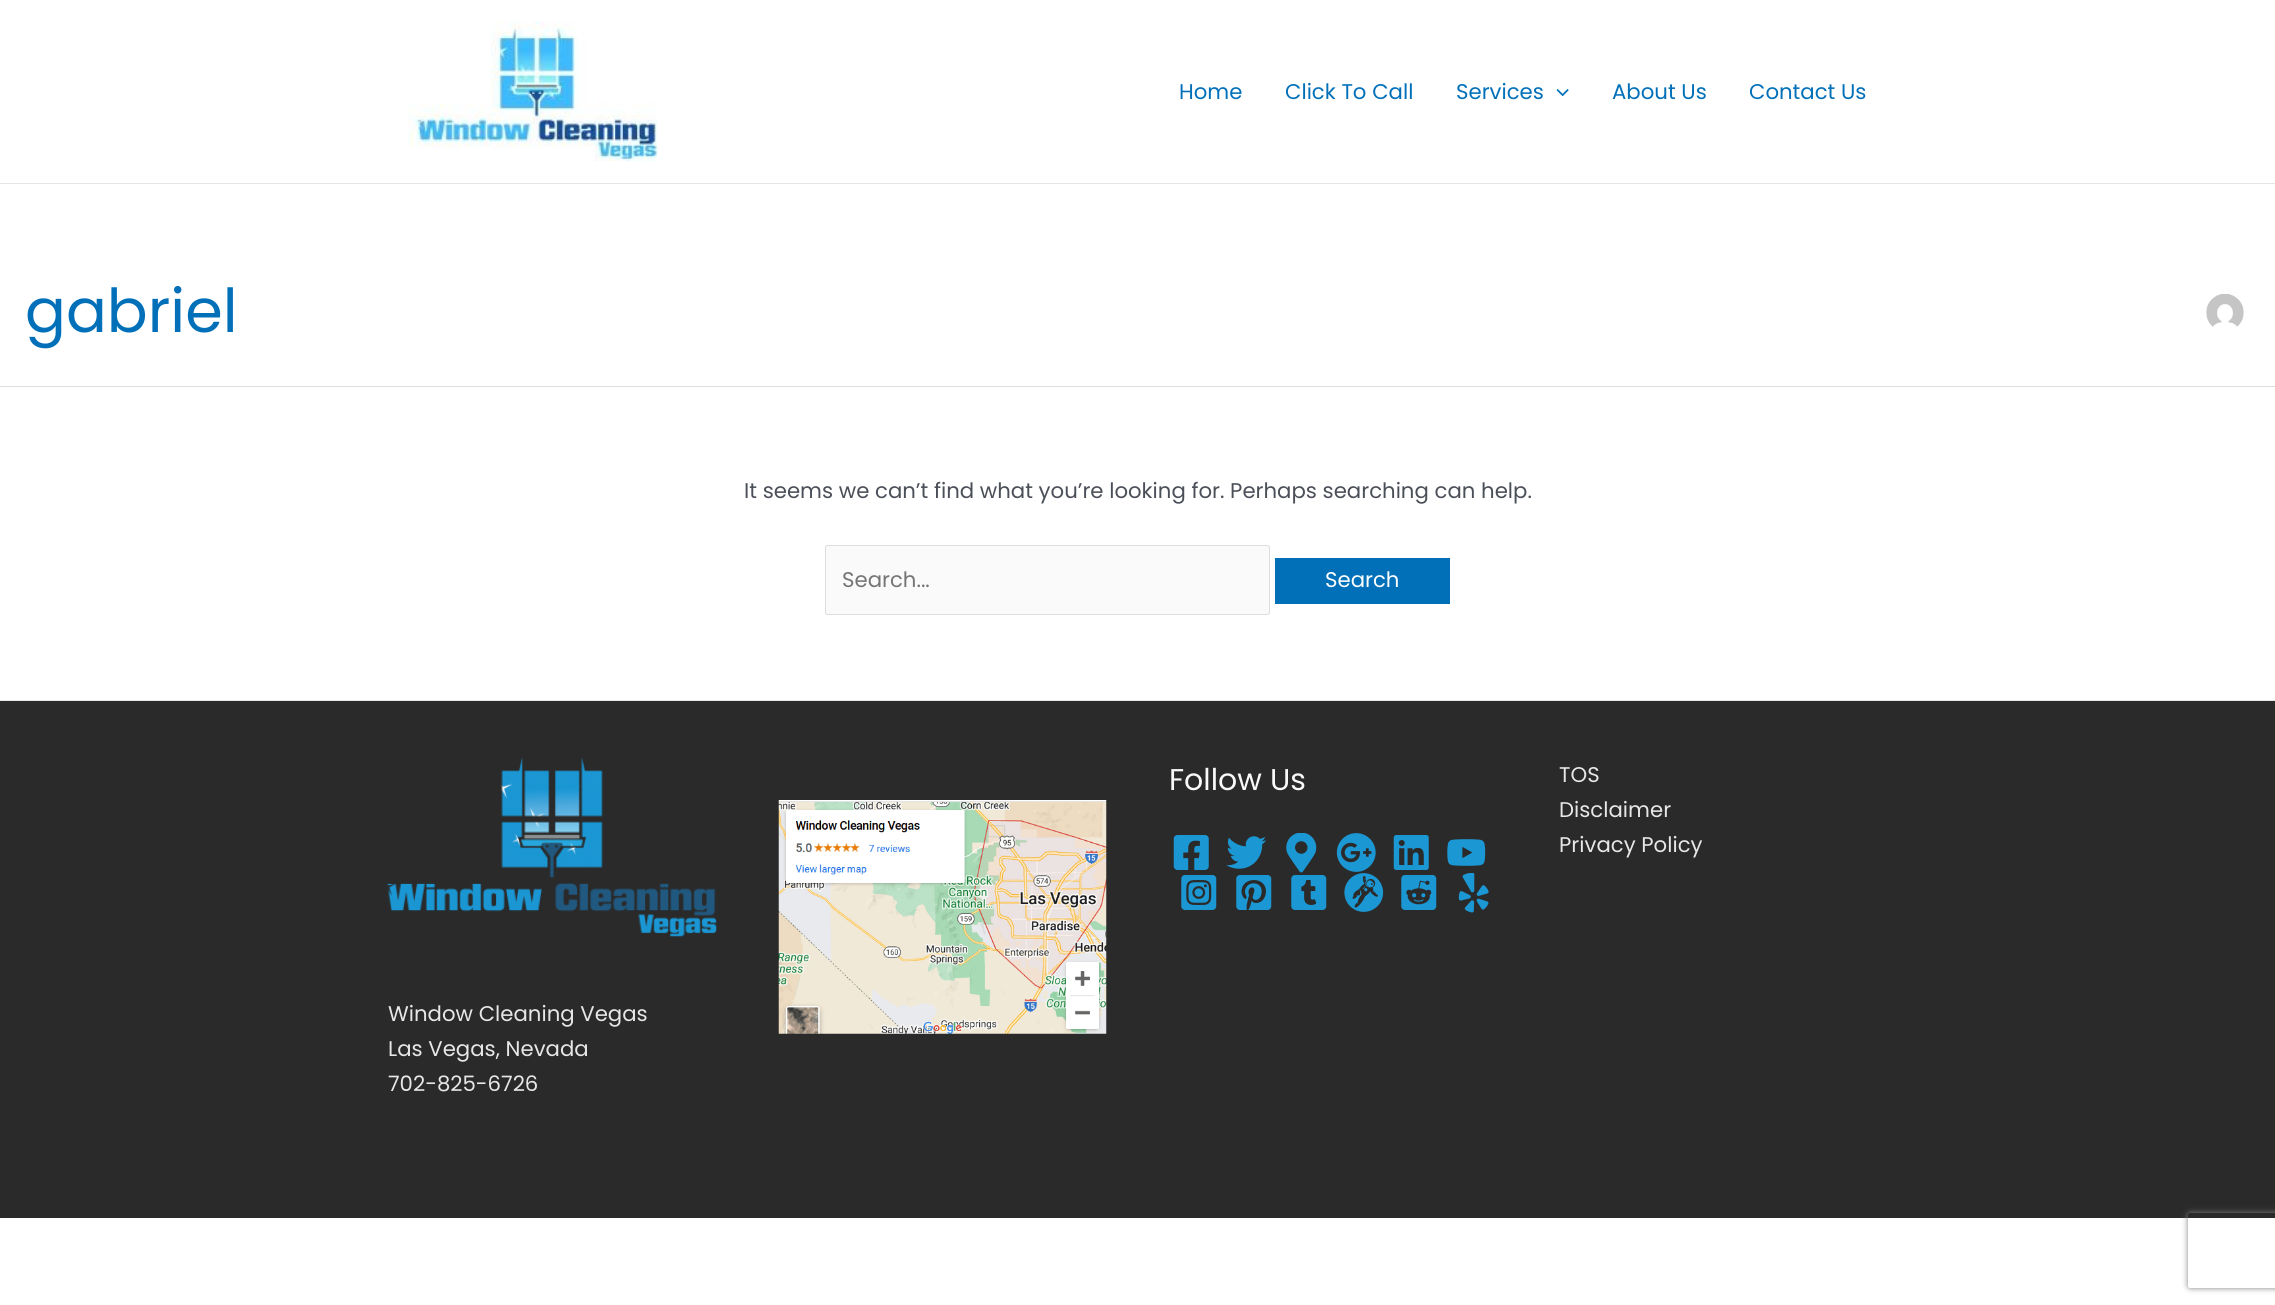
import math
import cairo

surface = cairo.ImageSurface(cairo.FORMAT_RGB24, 2275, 1305)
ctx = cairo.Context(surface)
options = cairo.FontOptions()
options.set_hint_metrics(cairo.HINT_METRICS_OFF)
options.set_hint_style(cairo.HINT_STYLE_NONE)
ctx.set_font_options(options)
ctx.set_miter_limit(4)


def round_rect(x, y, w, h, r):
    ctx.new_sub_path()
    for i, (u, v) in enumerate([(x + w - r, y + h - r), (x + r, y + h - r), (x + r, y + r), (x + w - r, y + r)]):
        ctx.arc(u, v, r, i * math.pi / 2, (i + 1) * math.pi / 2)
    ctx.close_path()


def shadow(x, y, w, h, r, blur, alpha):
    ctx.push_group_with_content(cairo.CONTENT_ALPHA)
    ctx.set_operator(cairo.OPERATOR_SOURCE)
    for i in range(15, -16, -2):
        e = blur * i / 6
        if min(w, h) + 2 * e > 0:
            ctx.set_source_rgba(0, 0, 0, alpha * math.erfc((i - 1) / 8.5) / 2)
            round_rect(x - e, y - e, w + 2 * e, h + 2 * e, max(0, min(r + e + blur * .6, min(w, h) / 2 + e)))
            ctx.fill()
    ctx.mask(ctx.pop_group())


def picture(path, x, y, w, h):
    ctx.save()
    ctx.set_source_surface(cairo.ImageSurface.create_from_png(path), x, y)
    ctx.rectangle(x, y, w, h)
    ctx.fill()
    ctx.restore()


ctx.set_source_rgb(1, 1, 1)
ctx.paint()
ctx.set_source_rgb(0.898, 0.898, 0.898)
ctx.rectangle(0, 183, 2275, 1)
ctx.fill()
picture("img1.png", 408, 21, 250, 141)
ctx.select_font_face("Poppins")
ctx.set_font_size(21.25)
ctx.set_source_rgb(0.004, 0.439, 0.725)
ctx.move_to(1179, 99)
ctx.show_text("Home")
ctx.move_to(1285, 99)
ctx.show_text("Click To Call")
ctx.move_to(1456, 99)
ctx.show_text("Services")
picture("img2.png", 1556, 89, 13, 8)
ctx.move_to(1612, 99)
ctx.show_text("About Us")
ctx.move_to(1749, 99)
ctx.show_text("Contact Us")
ctx.set_source_rgb(0.867, 0.867, 0.867)
ctx.rectangle(0, 386, 2275, 1)
ctx.fill()
ctx.set_font_size(60.5)
ctx.set_source_rgb(0.004, 0.439, 0.725)
ctx.move_to(25, 332)
ctx.show_text("gabriel")
picture("img3.png", 2206, 294, 38, 33)
ctx.set_font_size(21.25)
ctx.set_source_rgb(0.294, 0.31, 0.345)
ctx.move_to(744, 498)
ctx.show_text("It seems we can’t find what you’re looking for. Perhaps searching can help.")
ctx.set_source_rgb(0.98, 0.98, 0.98)
round_rect(825.5, 545.5, 444, 69, 2)
ctx.fill_preserve()
ctx.set_source_rgb(0.867, 0.867, 0.867)
ctx.set_line_width(1)
ctx.stroke()
ctx.set_source_rgb(0.459, 0.459, 0.459)
ctx.move_to(842, 587)
ctx.show_text("Search...")
ctx.set_source_rgb(0.004, 0.439, 0.725)
ctx.rectangle(1275, 558, 175, 46)
ctx.fill()
ctx.set_source_rgb(1, 1, 1)
ctx.move_to(1325, 587)
ctx.show_text("Search")
ctx.set_source_rgb(0.165, 0.165, 0.165)
ctx.rectangle(0, 701, 2275, 517)
ctx.fill()
ctx.set_source_rgb(0.898, 0.898, 0.898)
ctx.rectangle(0, 700, 2275, 1)
ctx.fill()
picture("img4.png", 778, 800, 329, 234)
ctx.set_font_size(30)
ctx.set_source_rgb(0.973, 0.973, 0.973)
ctx.move_to(1169, 790)
ctx.show_text("Follow Us")
picture("img5.png", 1173, 835, 36, 35)
picture("img6.png", 1226, 836, 40, 33)
picture("img7.png", 1286, 833, 31, 40)
picture("img8.png", 1336, 833, 40, 39)
picture("img9.png", 1393, 835, 36, 35)
picture("img10.png", 1447, 839, 39, 27)
picture("img11.png", 1181, 875, 36, 35)
picture("img12.png", 1236, 875, 36, 35)
picture("img13.png", 1291, 875, 36, 35)
picture("img14.png", 1344, 873, 40, 39)
picture("img15.png", 1401, 875, 36, 35)
picture("img16.png", 1458, 873, 31, 40)
ctx.set_font_size(21.25)
ctx.set_source_rgb(0.906, 0.906, 0.906)
ctx.move_to(1559, 782)
ctx.show_text("TOS")
ctx.move_to(1559, 817)
ctx.show_text("Disclaimer")
ctx.move_to(1559, 852)
ctx.show_text("Privacy Policy")
picture("img17.png", 387, 757, 330, 180)
ctx.move_to(388, 1021)
ctx.show_text("Window Cleaning Vegas")
ctx.move_to(388, 1056)
ctx.show_text("Las Vegas, Nevada")
ctx.move_to(388, 1091)
ctx.show_text("702-825-6726")
ctx.save()
ctx.set_fill_rule(cairo.FILL_RULE_EVEN_ODD)
ctx.new_path()
ctx.move_to(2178, 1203)
ctx.line_to(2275, 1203)
ctx.line_to(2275, 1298)
ctx.line_to(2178, 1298)
ctx.close_path()
ctx.move_to(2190.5, 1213)
ctx.line_to(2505.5, 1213)
ctx.curve_to(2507, 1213, 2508, 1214, 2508, 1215.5)
ctx.line_to(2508, 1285.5)
ctx.curve_to(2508, 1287, 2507, 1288, 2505.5, 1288)
ctx.line_to(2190.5, 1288)
ctx.curve_to(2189, 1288, 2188, 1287, 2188, 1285.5)
ctx.line_to(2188, 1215.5)
ctx.curve_to(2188, 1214, 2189, 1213, 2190.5, 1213)
ctx.close_path()
ctx.clip()
ctx.set_source_rgb(0.502, 0.502, 0.502)
shadow(2188, 1213, 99, 75, 2.5, 3, 1)
ctx.restore()
surface.write_to_png("page.png")
